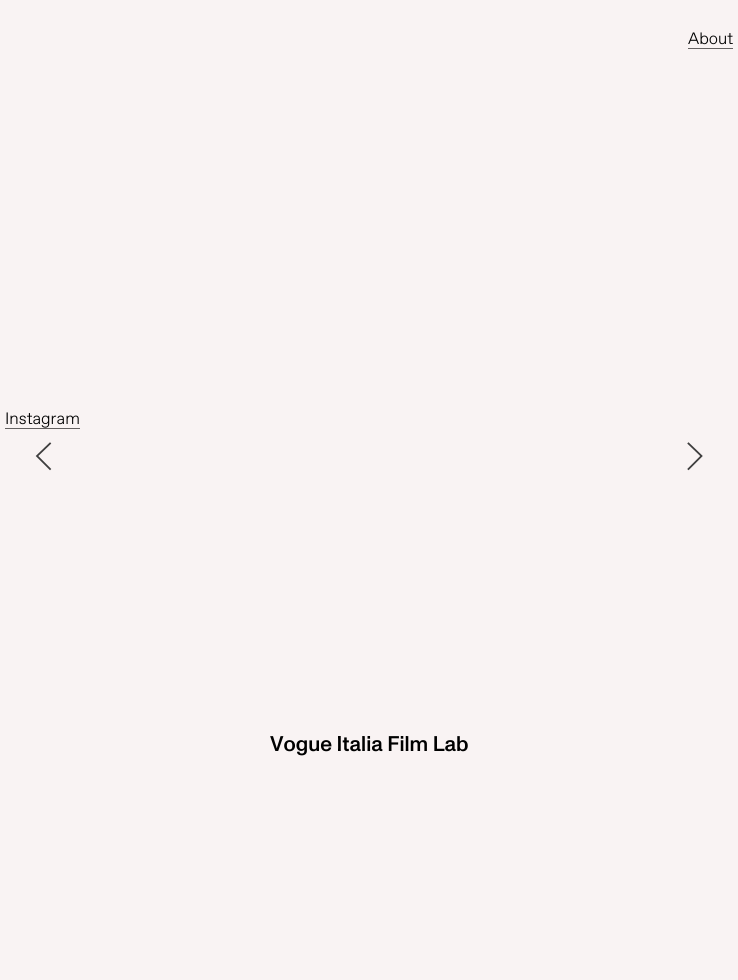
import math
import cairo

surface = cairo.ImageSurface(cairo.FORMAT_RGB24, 738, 980)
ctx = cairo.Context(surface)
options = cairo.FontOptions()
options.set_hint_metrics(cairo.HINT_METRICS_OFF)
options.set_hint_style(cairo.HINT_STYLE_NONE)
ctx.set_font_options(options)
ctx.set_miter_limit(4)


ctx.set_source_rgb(0.976, 0.953, 0.953)
ctx.paint()
ctx.select_font_face("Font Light")
ctx.set_font_size(16.5)
ctx.set_source_rgb(0, 0, 0)
ctx.move_to(688, 44)
ctx.show_text("About")
ctx.set_source_rgb(0.392, 0.38, 0.38)
ctx.rectangle(688, 48, 45, 1)
ctx.fill()
ctx.set_source_rgb(0, 0, 0)
ctx.move_to(5, 424)
ctx.show_text("Instagram")
ctx.set_source_rgb(0.392, 0.38, 0.38)
ctx.rectangle(5, 428, 75, 1)
ctx.fill()
ctx.new_path()
ctx.move_to(50, 469)
ctx.line_to(37, 456)
ctx.line_to(50, 443.5)
ctx.set_source_rgb(0.243, 0.239, 0.239)
ctx.set_line_width(1.8)
ctx.set_line_cap(cairo.LINE_CAP_SQUARE)
ctx.stroke()
ctx.new_path()
ctx.move_to(688.5, 469)
ctx.line_to(701.5, 456)
ctx.line_to(688.5, 443.5)
ctx.stroke()
ctx.select_font_face("Font Medium")
ctx.set_font_size(21.25)
ctx.set_source_rgb(0, 0, 0)
ctx.move_to(270, 751)
ctx.show_text("Vogue Italia Film Lab")
surface.write_to_png("page.png")
